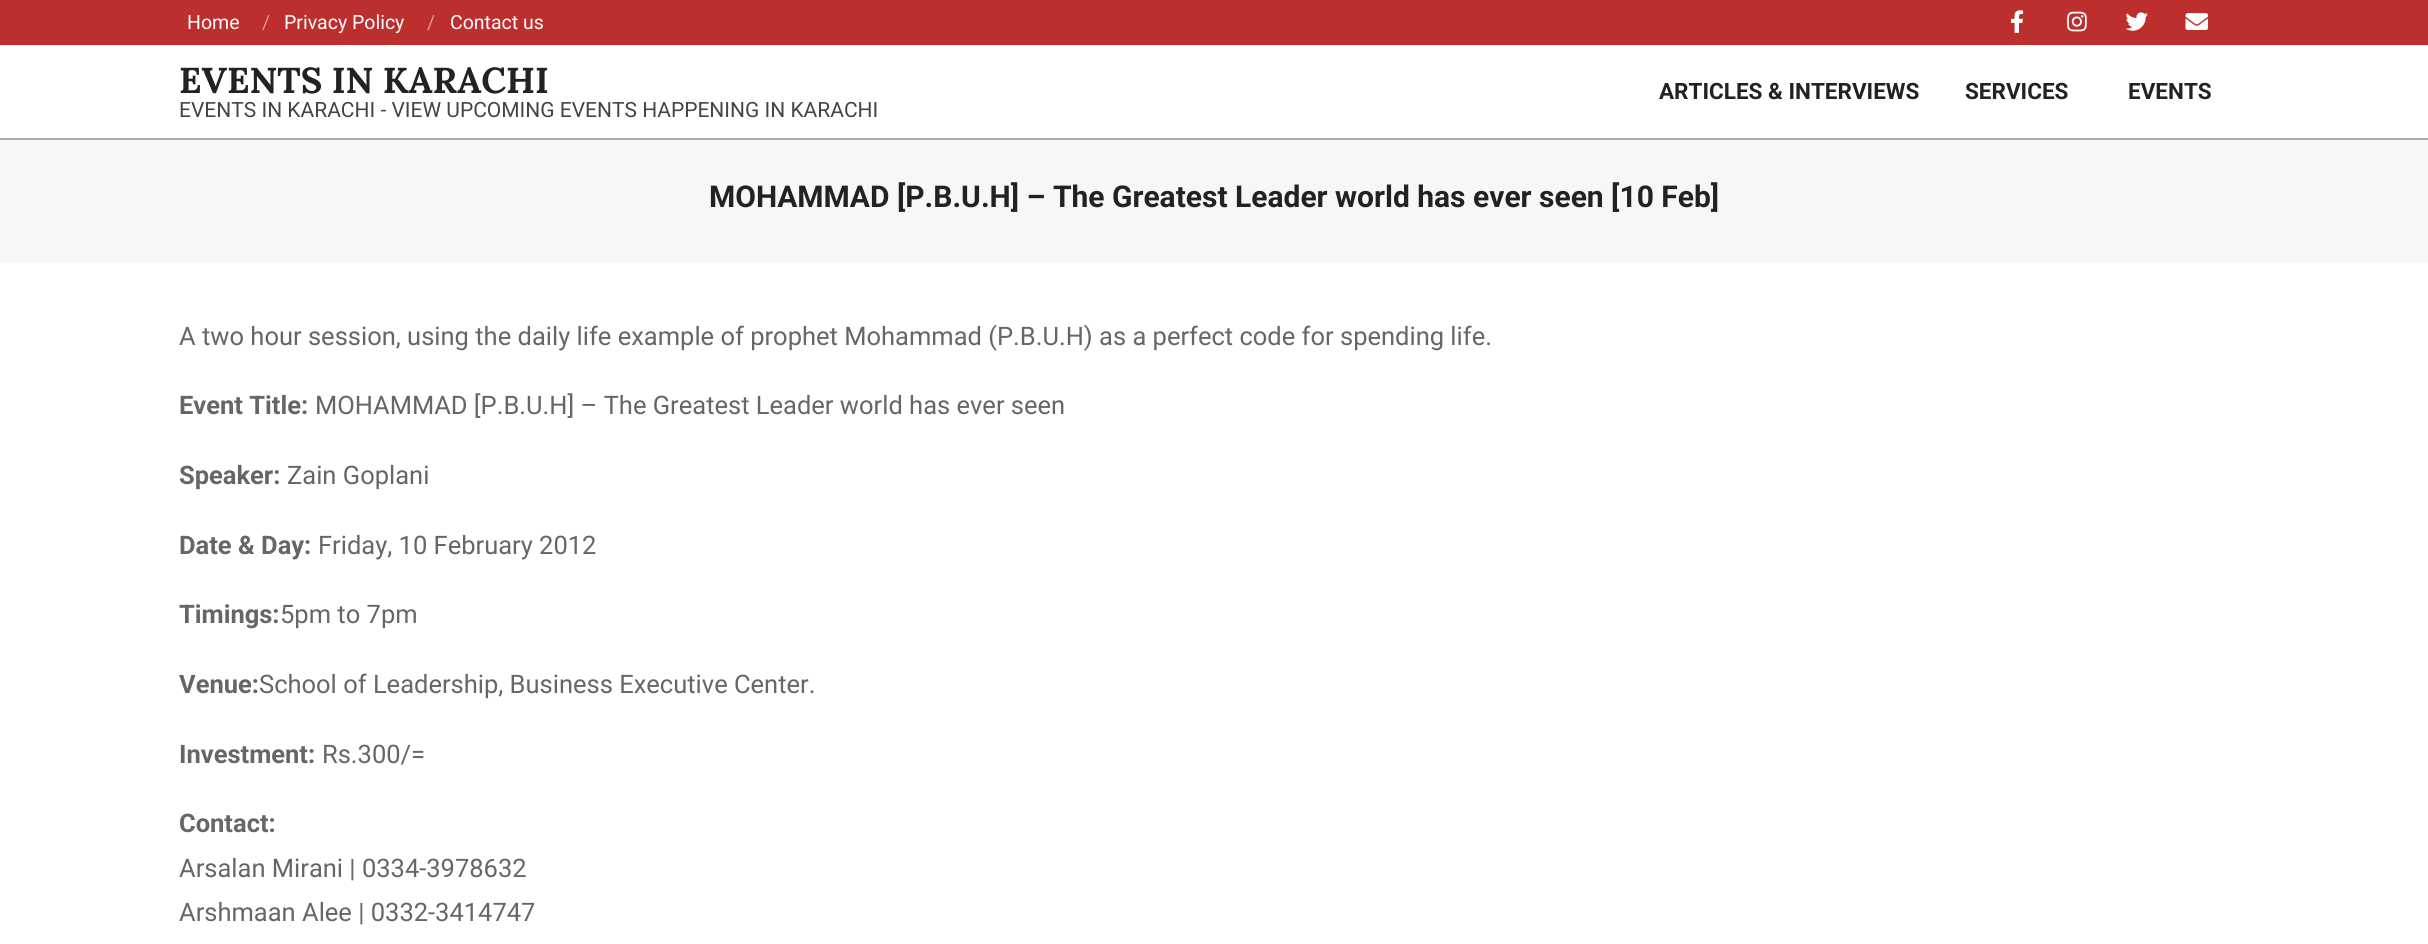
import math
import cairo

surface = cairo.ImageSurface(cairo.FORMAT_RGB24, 2428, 944)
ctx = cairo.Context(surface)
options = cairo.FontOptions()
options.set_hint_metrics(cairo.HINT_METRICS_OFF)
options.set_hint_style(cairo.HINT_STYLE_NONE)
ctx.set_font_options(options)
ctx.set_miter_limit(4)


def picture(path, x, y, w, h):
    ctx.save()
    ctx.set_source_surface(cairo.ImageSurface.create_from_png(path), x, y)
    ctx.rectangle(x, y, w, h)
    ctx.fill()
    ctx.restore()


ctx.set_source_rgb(1, 1, 1)
ctx.paint()
ctx.set_source_rgb(0.741, 0.18, 0.18)
ctx.rectangle(0, 0, 2428, 45)
ctx.fill()
ctx.select_font_face("Roboto")
ctx.set_font_size(19.5)
ctx.set_source_rgb(1, 1, 1)
ctx.move_to(187, 29)
ctx.show_text("Home")
ctx.set_source_rgb(0.871, 0.592, 0.592)
ctx.move_to(262, 29)
ctx.show_text("/")
ctx.set_source_rgb(1, 1, 1)
ctx.move_to(284, 29)
ctx.show_text("Privacy Policy")
ctx.set_source_rgb(0.871, 0.592, 0.592)
ctx.move_to(427, 29)
ctx.show_text("/")
ctx.set_source_rgb(1, 1, 1)
ctx.move_to(450, 29)
ctx.show_text("Contact us")
picture("img1.png", 2011, 10, 13, 23)
picture("img2.png", 2067, 11, 20, 21)
picture("img3.png", 2125, 12, 23, 19)
picture("img4.png", 2185, 13, 23, 17)
ctx.set_source_rgb(0.671, 0.671, 0.671)
ctx.rectangle(0, 138, 2428, 2)
ctx.fill()
ctx.select_font_face("Lora", cairo.FONT_SLANT_NORMAL, cairo.FONT_WEIGHT_BOLD)
ctx.set_font_size(36)
ctx.set_source_rgb(0.133, 0.133, 0.133)
ctx.move_to(179, 93)
ctx.show_text("EVENTS IN KARACHI")
ctx.select_font_face("Roboto")
ctx.set_font_size(21)
ctx.set_source_rgb(0.267, 0.267, 0.267)
ctx.move_to(179, 117)
ctx.show_text("EVENTS IN KARACHI - VIEW UPCOMING EVENTS HAPPENING IN KARACHI")
ctx.select_font_face("Roboto", cairo.FONT_SLANT_NORMAL, cairo.FONT_WEIGHT_BOLD)
ctx.set_font_size(22.5)
ctx.set_source_rgb(0.133, 0.133, 0.133)
ctx.move_to(1659, 99)
ctx.show_text("ARTICLES & INTERVIEWS")
ctx.move_to(1965, 99)
ctx.show_text("SERVICES")
ctx.move_to(2128, 99)
ctx.show_text("EVENTS")
ctx.set_source_rgb(0.965, 0.965, 0.965)
ctx.rectangle(0, 140, 2428, 123)
ctx.fill()
ctx.set_font_size(30)
ctx.set_source_rgb(0.133, 0.133, 0.133)
ctx.move_to(709, 207)
ctx.show_text("MOHAMMAD [P.B.U.H] – The Greatest Leader world has ever seen [10 Feb]")
ctx.select_font_face("Roboto")
ctx.set_font_size(25.5)
ctx.set_source_rgb(0.4, 0.4, 0.4)
ctx.move_to(179, 345)
ctx.show_text("A two hour session, using the daily life example of prophet Mohammad (P.B.U.H) as a perfect code for spending life.")
ctx.select_font_face("Roboto", cairo.FONT_SLANT_NORMAL, cairo.FONT_WEIGHT_BOLD)
ctx.move_to(179, 414)
ctx.show_text("Event Title:")
ctx.select_font_face("Roboto")
ctx.move_to(315, 414)
ctx.show_text("MOHAMMAD [P.B.U.H] – The Greatest Leader world has ever seen")
ctx.select_font_face("Roboto", cairo.FONT_SLANT_NORMAL, cairo.FONT_WEIGHT_BOLD)
ctx.move_to(179, 484)
ctx.show_text("Speaker:")
ctx.select_font_face("Roboto")
ctx.move_to(287, 484)
ctx.show_text("Zain Goplani")
ctx.select_font_face("Roboto", cairo.FONT_SLANT_NORMAL, cairo.FONT_WEIGHT_BOLD)
ctx.move_to(179, 554)
ctx.show_text("Date & Day:")
ctx.select_font_face("Roboto")
ctx.move_to(318, 554)
ctx.show_text("Friday, 10 February 2012")
ctx.select_font_face("Roboto", cairo.FONT_SLANT_NORMAL, cairo.FONT_WEIGHT_BOLD)
ctx.move_to(179, 623)
ctx.show_text("Timings:")
ctx.select_font_face("Roboto")
ctx.move_to(280, 623)
ctx.show_text("5pm to 7pm")
ctx.select_font_face("Roboto", cairo.FONT_SLANT_NORMAL, cairo.FONT_WEIGHT_BOLD)
ctx.move_to(179, 693)
ctx.show_text("Venue:")
ctx.select_font_face("Roboto")
ctx.move_to(259, 693)
ctx.show_text("School of Leadership, Business Executive Center.")
ctx.select_font_face("Roboto", cairo.FONT_SLANT_NORMAL, cairo.FONT_WEIGHT_BOLD)
ctx.move_to(179, 763)
ctx.show_text("Investment:")
ctx.select_font_face("Roboto")
ctx.move_to(322, 763)
ctx.show_text("Rs.300/=")
ctx.select_font_face("Roboto", cairo.FONT_SLANT_NORMAL, cairo.FONT_WEIGHT_BOLD)
ctx.move_to(179, 832)
ctx.show_text("Contact:")
ctx.select_font_face("Roboto")
ctx.move_to(179, 877)
ctx.show_text("Arsalan Mirani | 0334-3978632")
ctx.move_to(179, 921)
ctx.show_text("Arshmaan Alee | 0332-3414747")
surface.write_to_png("page.png")
